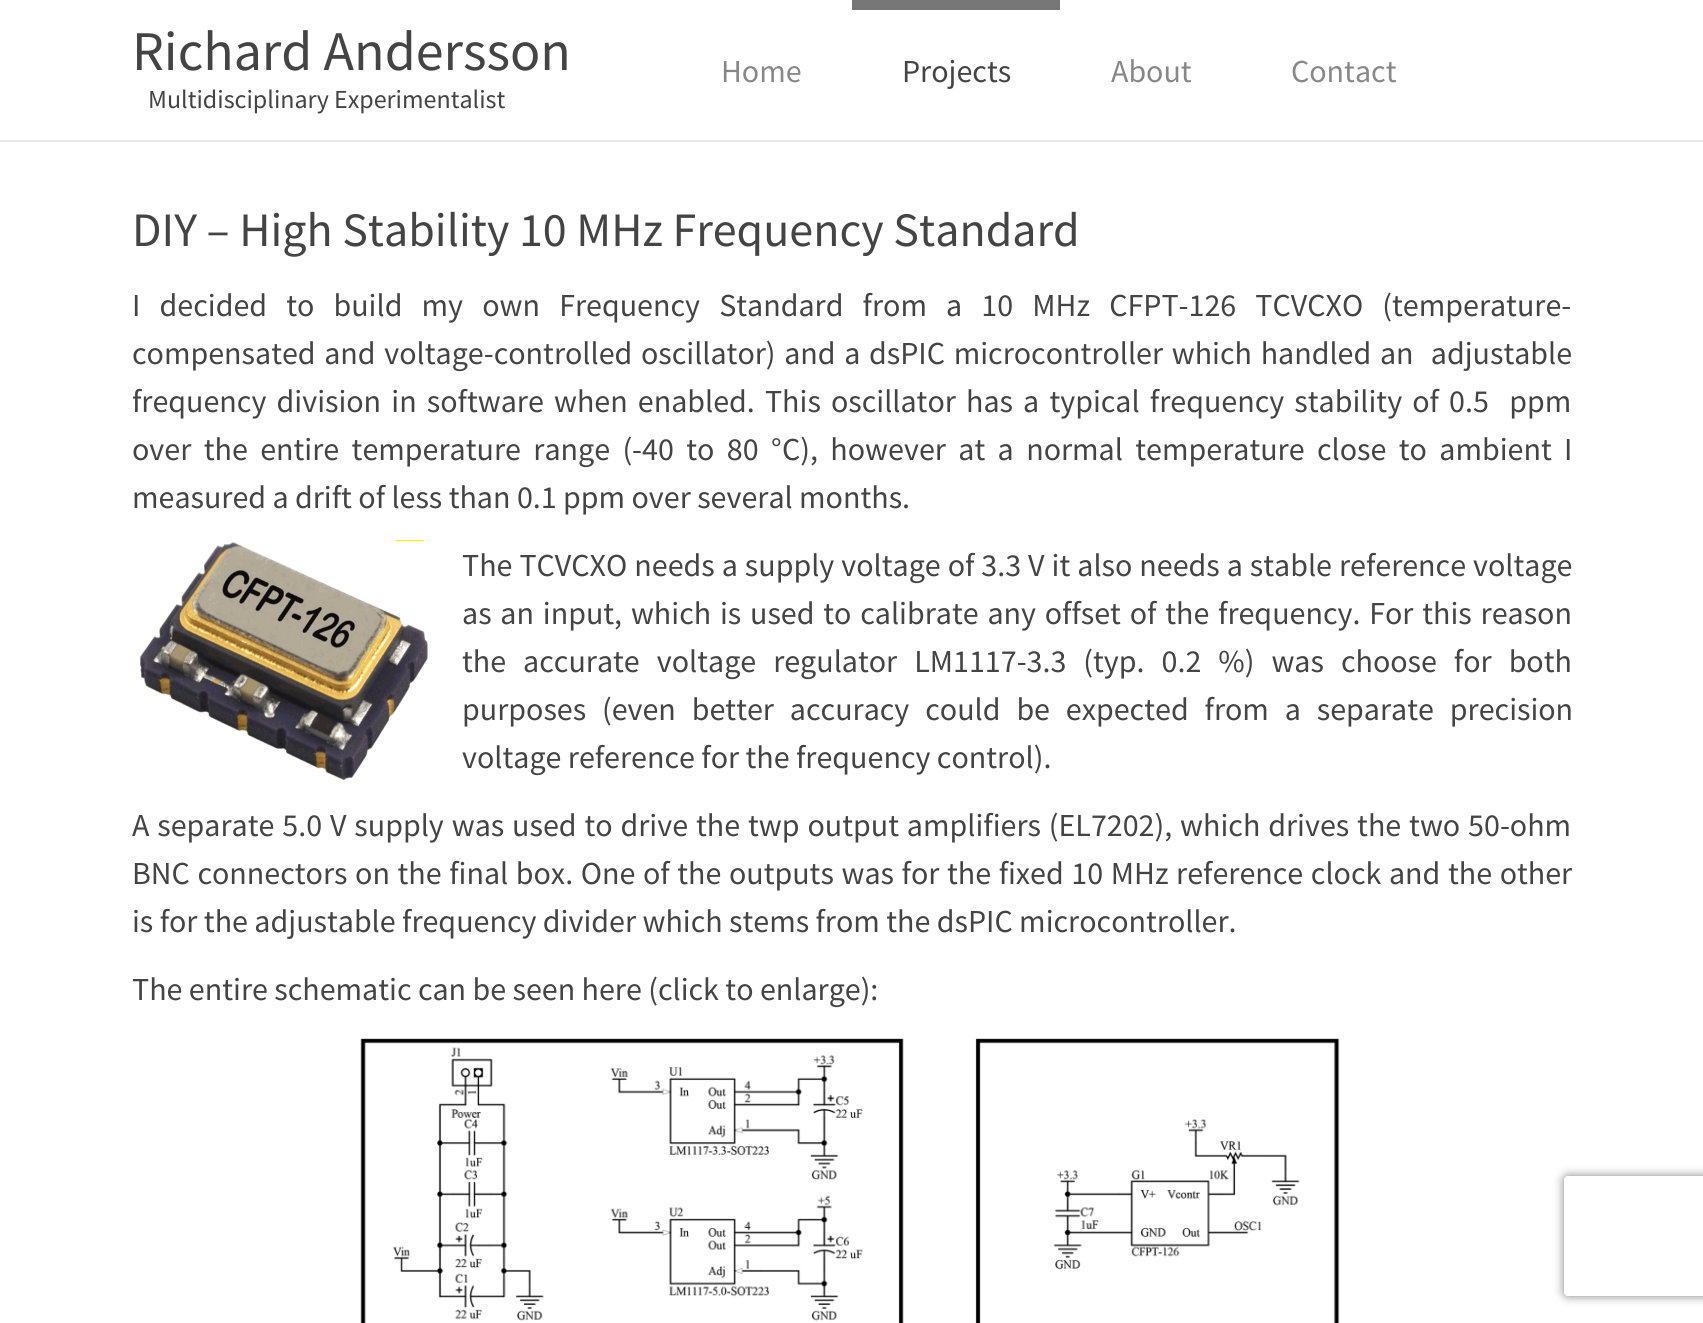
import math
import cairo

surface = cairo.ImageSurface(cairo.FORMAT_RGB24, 1703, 1323)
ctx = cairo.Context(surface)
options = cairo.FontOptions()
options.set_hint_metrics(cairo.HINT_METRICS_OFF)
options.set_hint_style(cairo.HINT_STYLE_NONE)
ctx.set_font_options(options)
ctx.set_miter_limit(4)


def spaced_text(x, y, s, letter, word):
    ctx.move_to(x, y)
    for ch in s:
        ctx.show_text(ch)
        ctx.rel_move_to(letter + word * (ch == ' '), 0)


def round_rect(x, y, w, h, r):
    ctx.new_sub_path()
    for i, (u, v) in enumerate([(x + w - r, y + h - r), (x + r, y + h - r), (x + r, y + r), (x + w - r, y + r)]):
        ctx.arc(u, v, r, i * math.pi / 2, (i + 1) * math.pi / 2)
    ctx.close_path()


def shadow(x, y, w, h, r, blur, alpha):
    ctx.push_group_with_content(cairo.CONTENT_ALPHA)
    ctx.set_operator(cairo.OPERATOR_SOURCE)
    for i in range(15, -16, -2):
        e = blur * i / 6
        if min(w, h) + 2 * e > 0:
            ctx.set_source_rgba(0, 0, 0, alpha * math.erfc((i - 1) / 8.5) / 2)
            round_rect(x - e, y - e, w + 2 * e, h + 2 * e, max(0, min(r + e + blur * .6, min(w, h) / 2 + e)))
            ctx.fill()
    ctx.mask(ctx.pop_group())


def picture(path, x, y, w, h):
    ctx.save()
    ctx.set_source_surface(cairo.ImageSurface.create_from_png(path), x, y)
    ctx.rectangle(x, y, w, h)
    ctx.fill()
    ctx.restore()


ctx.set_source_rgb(1, 1, 1)
ctx.paint()
ctx.set_source_rgb(0.906, 0.906, 0.906)
ctx.rectangle(0, 140, 1703, 2)
ctx.fill()
ctx.select_font_face("Source Sans Pro")
ctx.set_font_size(56)
ctx.set_source_rgb(0.267, 0.267, 0.267)
ctx.move_to(132, 70)
ctx.show_text("Richard Andersson")
ctx.set_font_size(26)
ctx.move_to(148, 108)
ctx.show_text("Multidisciplinary Experimentalist")
ctx.set_font_size(32)
ctx.set_source_rgb(0.533, 0.533, 0.533)
ctx.move_to(721, 82)
ctx.show_text("Home")
ctx.set_source_rgb(0.467, 0.467, 0.467)
ctx.rectangle(852, 0, 208, 10)
ctx.fill()
ctx.set_source_rgb(0.267, 0.267, 0.267)
ctx.move_to(902, 82)
ctx.show_text("Projects")
ctx.set_source_rgb(0.533, 0.533, 0.533)
ctx.move_to(1111, 82)
ctx.show_text("About")
ctx.move_to(1291, 82)
ctx.show_text("Contact")
ctx.set_font_size(48)
ctx.set_source_rgb(0.267, 0.267, 0.267)
ctx.move_to(132, 246)
ctx.show_text("DIY – High Stability 10 MHz Frequency Standard")
ctx.set_font_size(32)
spaced_text(132, 316, "I decided to build my own Frequency Standard from a 10 MHz CFPT-126 TCVCXO (temperature-", 0, 12.75)
spaced_text(132, 364, "compensated and voltage-controlled oscillator) and a dsPIC microcontroller which handled an  adjustable", 0, 2.25)
spaced_text(132, 412, "frequency division in software when enabled. This oscillator has a typical frequency stability of 0.5  ppm", 0, 3.75)
spaced_text(132, 460, "over the entire temperature range (-40 to 80", 0, 6)
ctx.move_to(771, 460)
ctx.show_text("°")
spaced_text(782, 460, "C), however at a normal temperature close to ambient I", 0, 6)
ctx.move_to(132, 508)
ctx.show_text("measured a drift of less than 0.1 ppm over several months.")
picture("img1.png", 139, 540, 289, 242)
spaced_text(462, 576, "The TCVCXO needs a supply voltage of 3.3 V it also needs a stable reference voltage", 0, 0.6)
spaced_text(462, 624, "as an input, which is used to calibrate any offset of the frequency. For this reason", 0, 2.4)
spaced_text(462, 672, "the accurate voltage regulator LM1117-3.3 (typ. 0.2 %) was choose for both", 0, 10.6)
spaced_text(462, 720, "purposes (even better accuracy could be expected from a separate precision", 0, 9.5)
ctx.move_to(462, 768)
ctx.show_text("voltage reference for the frequency control).")
spaced_text(132, 836, "A separate 5.0 V supply was used to drive the twp output amplifiers (EL7202), which drives the two 50-ohm", 0, 1.5)
spaced_text(132, 884, "BNC connectors on the final box. One of the outputs was for the fixed 10 MHz reference clock and the other", 0, 1.2)
ctx.move_to(132, 932)
ctx.show_text("is for the adjustable frequency divider which stems from the dsPIC microcontroller.")
ctx.move_to(132, 1000)
ctx.show_text("The entire schematic can be seen here (click to enlarge):")
picture("img2.png", 360, 1038, 980, 285)
ctx.save()
ctx.set_fill_rule(cairo.FILL_RULE_EVEN_ODD)
ctx.new_path()
ctx.move_to(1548, 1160)
ctx.line_to(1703, 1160)
ctx.line_to(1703, 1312)
ctx.line_to(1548, 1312)
ctx.close_path()
ctx.move_to(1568, 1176)
ctx.line_to(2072, 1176)
ctx.curve_to(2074, 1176, 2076, 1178, 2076, 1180)
ctx.line_to(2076, 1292)
ctx.curve_to(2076, 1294, 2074, 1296, 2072, 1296)
ctx.line_to(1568, 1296)
ctx.curve_to(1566, 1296, 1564, 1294, 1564, 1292)
ctx.line_to(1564, 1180)
ctx.curve_to(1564, 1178, 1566, 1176, 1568, 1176)
ctx.close_path()
ctx.clip()
ctx.set_source_rgb(0.502, 0.502, 0.502)
shadow(1564, 1176, 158, 120, 4, 5, 1)
ctx.restore()
surface.write_to_png("page.png")
